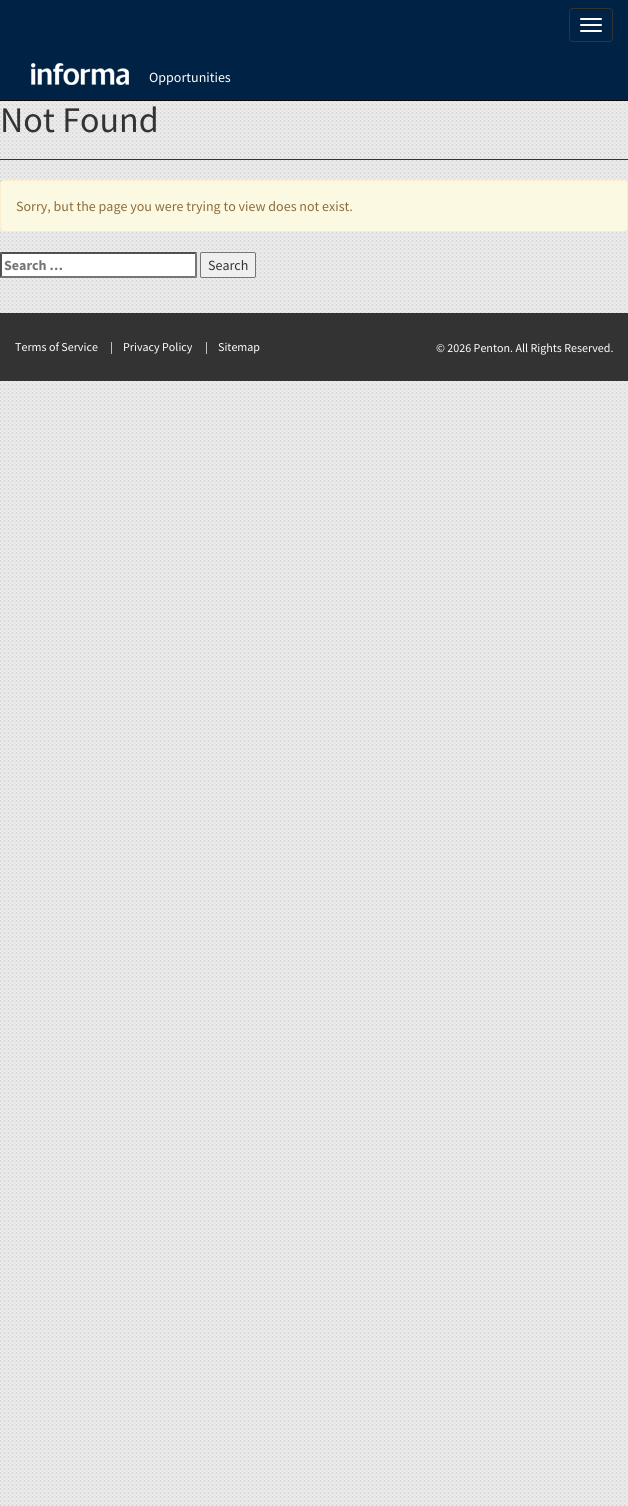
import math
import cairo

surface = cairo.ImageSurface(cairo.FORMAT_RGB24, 628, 1506)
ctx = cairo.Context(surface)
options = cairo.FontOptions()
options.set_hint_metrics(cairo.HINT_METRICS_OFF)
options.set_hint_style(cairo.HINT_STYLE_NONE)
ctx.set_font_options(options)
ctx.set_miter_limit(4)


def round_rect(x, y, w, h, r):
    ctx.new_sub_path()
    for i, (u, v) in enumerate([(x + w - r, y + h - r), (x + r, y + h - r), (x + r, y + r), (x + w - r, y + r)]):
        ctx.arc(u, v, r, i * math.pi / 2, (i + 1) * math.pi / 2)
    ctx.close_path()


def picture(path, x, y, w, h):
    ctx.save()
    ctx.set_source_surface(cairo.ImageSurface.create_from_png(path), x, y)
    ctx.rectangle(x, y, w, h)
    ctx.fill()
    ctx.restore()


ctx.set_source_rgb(1, 1, 1)
ctx.paint()
picture("img1.png", 0, 101, 628, 1405)
ctx.set_source_rgb(0, 0.133, 0.267)
ctx.rectangle(0, 0, 628, 100)
ctx.fill()
ctx.set_source_rgb(0.035, 0.035, 0.035)
ctx.rectangle(0, 100, 628, 1)
ctx.fill()
round_rect(569.5, 8.5, 43, 33, 3.5)
ctx.set_source_rgb(0.2, 0.2, 0.2)
ctx.set_line_width(1)
ctx.stroke()
ctx.set_source_rgb(1, 1, 1)
round_rect(580, 18, 22, 2, 1)
ctx.fill()
round_rect(580, 24, 22, 2, 1)
ctx.fill()
round_rect(580, 30, 22, 2, 1)
ctx.fill()
picture("img2.png", 31, 63, 98, 22)
ctx.select_font_face("Source Sans Pro")
ctx.set_font_size(14)
ctx.move_to(149, 82)
ctx.show_text("Opportunities")
ctx.set_source_rgb(0.2, 0.2, 0.2)
ctx.rectangle(0, 159, 628, 1)
ctx.fill()
ctx.set_font_size(36)
ctx.move_to(0, 132)
ctx.show_text("Not Found")
ctx.set_source_rgb(0.988, 0.973, 0.89)
round_rect(0.5, 180.5, 627, 51, 3.5)
ctx.fill_preserve()
ctx.set_source_rgb(0.98, 0.922, 0.8)
ctx.stroke()
ctx.set_font_size(14)
ctx.set_source_rgb(0.541, 0.427, 0.231)
ctx.move_to(16, 211)
ctx.show_text("Sorry, but the page you were trying to view does not exist.")
ctx.set_source_rgb(1, 1, 1)
ctx.rectangle(0, 252, 197, 26)
ctx.fill()
ctx.set_source_rgb(0.31, 0.31, 0.31)
ctx.new_path()
ctx.move_to(0, 252)
ctx.line_to(197, 252)
ctx.line_to(195, 254)
ctx.line_to(2, 254)
ctx.close_path()
ctx.fill()
ctx.set_source_rgb(0.463, 0.463, 0.463)
ctx.new_path()
ctx.move_to(197, 252)
ctx.line_to(197, 278)
ctx.line_to(195, 276)
ctx.line_to(195, 254)
ctx.close_path()
ctx.fill()
ctx.new_path()
ctx.move_to(197, 278)
ctx.line_to(0, 278)
ctx.line_to(2, 276)
ctx.line_to(195, 276)
ctx.close_path()
ctx.fill()
ctx.set_source_rgb(0.31, 0.31, 0.31)
ctx.new_path()
ctx.move_to(0, 278)
ctx.line_to(0, 252)
ctx.line_to(2, 254)
ctx.line_to(2, 276)
ctx.close_path()
ctx.fill()
ctx.select_font_face("Source Sans Pro", cairo.FONT_SLANT_NORMAL, cairo.FONT_WEIGHT_BOLD)
ctx.set_source_rgb(0.459, 0.459, 0.459)
ctx.move_to(4, 270)
ctx.show_text("Search …")
ctx.set_source_rgb(0.937, 0.937, 0.937)
round_rect(200.5, 252.5, 55, 25, 1.5)
ctx.fill_preserve()
ctx.set_source_rgb(0.463, 0.463, 0.463)
ctx.stroke()
ctx.select_font_face("Source Sans Pro")
ctx.set_source_rgb(0.2, 0.2, 0.2)
ctx.move_to(208, 270)
ctx.show_text("Search")
ctx.rectangle(0, 313, 628, 68)
ctx.fill()
ctx.set_font_size(12)
ctx.set_source_rgb(1, 1, 1)
ctx.move_to(15, 351)
ctx.show_text("Terms of Service")
ctx.move_to(110, 351)
ctx.show_text("|")
ctx.move_to(123, 351)
ctx.show_text("Privacy Policy")
ctx.move_to(205, 351)
ctx.show_text("|")
ctx.move_to(218, 351)
ctx.show_text("Sitemap")
ctx.move_to(436, 352)
ctx.show_text("© 2026 Penton. All Rights Reserved.")
surface.write_to_png("page.png")
